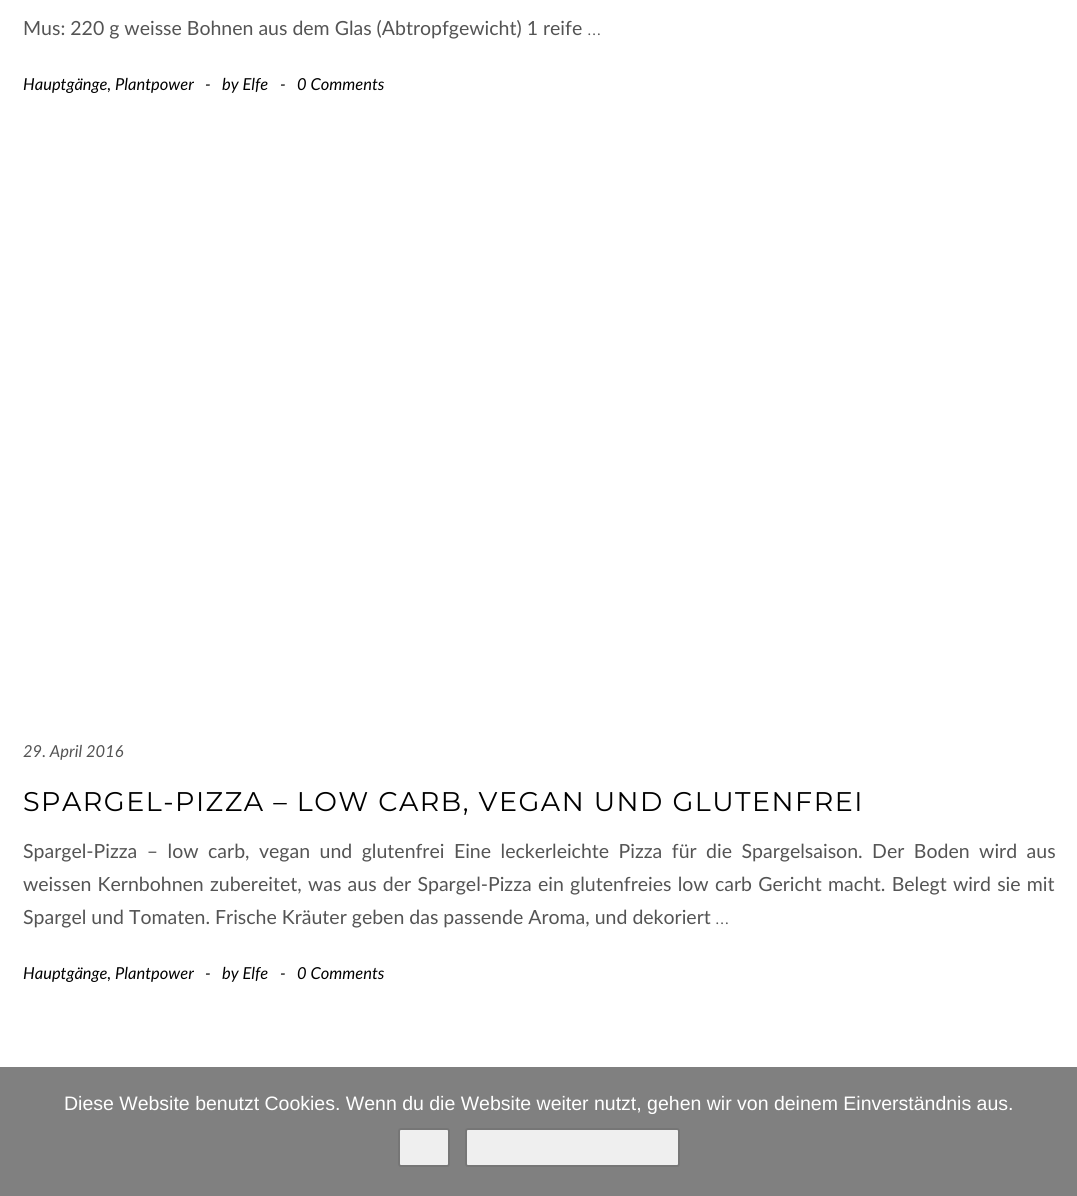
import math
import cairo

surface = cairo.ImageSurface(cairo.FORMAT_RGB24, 1077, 1196)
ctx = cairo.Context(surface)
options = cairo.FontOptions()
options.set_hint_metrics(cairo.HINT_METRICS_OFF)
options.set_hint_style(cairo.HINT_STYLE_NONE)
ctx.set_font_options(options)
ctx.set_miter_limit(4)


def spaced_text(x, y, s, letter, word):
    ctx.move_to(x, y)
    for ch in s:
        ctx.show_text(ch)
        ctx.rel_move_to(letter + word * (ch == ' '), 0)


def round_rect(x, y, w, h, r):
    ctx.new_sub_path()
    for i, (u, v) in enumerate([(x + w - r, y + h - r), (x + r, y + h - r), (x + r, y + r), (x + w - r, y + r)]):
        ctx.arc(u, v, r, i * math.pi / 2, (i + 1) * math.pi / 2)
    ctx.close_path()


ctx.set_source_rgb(1, 1, 1)
ctx.paint()
ctx.select_font_face("Lato")
ctx.set_font_size(19.5)
ctx.set_source_rgb(0.329, 0.329, 0.329)
ctx.move_to(23, 35)
ctx.show_text("Mus: 220 g weisse Bohnen aus dem Glas (Abtropfgewicht) 1 reife")
ctx.select_font_face("Lato Light")
ctx.move_to(587, 35)
ctx.show_text("…")
ctx.select_font_face("Lato", cairo.FONT_SLANT_ITALIC)
ctx.set_font_size(16.5)
ctx.set_source_rgb(0, 0, 0)
ctx.move_to(23, 90)
ctx.show_text("Hauptgänge, Plantpower")
ctx.move_to(205, 90)
ctx.show_text("-")
ctx.move_to(222, 90)
ctx.show_text("by Elfe")
ctx.move_to(280, 90)
ctx.show_text("-")
ctx.move_to(297, 90)
ctx.show_text("0 Comments")
ctx.set_source_rgb(0.329, 0.329, 0.329)
ctx.move_to(23, 757)
ctx.show_text("29. April 2016")
ctx.select_font_face("Montserrat")
ctx.set_font_size(27)
ctx.set_source_rgb(0, 0, 0)
spaced_text(23, 811, "SPARGEL-PIZZA – LOW CARB, VEGAN UND GLUTENFREI", 1.5, 0)
ctx.select_font_face("Lato")
ctx.set_font_size(19.5)
ctx.set_source_rgb(0.329, 0.329, 0.329)
spaced_text(23, 858, "Spargel-Pizza – low carb, vegan und glutenfrei Eine leckerleichte Pizza für die Spargelsaison. Der Boden wird aus", 0, 4.5)
spaced_text(23, 891, "weissen Kernbohnen zubereitet, was aus der Spargel-Pizza ein glutenfreies low carb Gericht macht. Belegt wird sie mit", 0, 1.25)
ctx.move_to(23, 924)
ctx.show_text("Spargel und Tomaten. Frische Kräuter geben das passende Aroma, und dekoriert")
ctx.select_font_face("Lato Light")
ctx.move_to(715, 924)
ctx.show_text("…")
ctx.select_font_face("Lato", cairo.FONT_SLANT_ITALIC)
ctx.set_font_size(16.5)
ctx.set_source_rgb(0, 0, 0)
ctx.move_to(23, 979)
ctx.show_text("Hauptgänge, Plantpower")
ctx.move_to(205, 979)
ctx.show_text("-")
ctx.move_to(222, 979)
ctx.show_text("by Elfe")
ctx.move_to(280, 979)
ctx.show_text("-")
ctx.move_to(297, 979)
ctx.show_text("0 Comments")
ctx.set_source_rgb(0.502, 0.502, 0.502)
ctx.rectangle(0, 1067, 1077, 129)
ctx.fill()
ctx.select_font_face("Liberation Sans")
ctx.set_font_size(19.5)
ctx.set_source_rgb(1, 1, 1)
ctx.move_to(64, 1110)
ctx.show_text("Diese Website benutzt Cookies. Wenn du die Website weiter nutzt, gehen wir von deinem Einverständnis aus.")
ctx.set_source_rgb(0.937, 0.937, 0.937)
round_rect(399, 1129, 50, 37, 2)
ctx.fill_preserve()
ctx.set_source_rgb(0.463, 0.463, 0.463)
ctx.stroke()
ctx.set_source_rgb(0.937, 0.937, 0.937)
round_rect(466, 1129, 213, 37, 2)
ctx.fill_preserve()
ctx.set_source_rgb(0.463, 0.463, 0.463)
ctx.stroke()
surface.write_to_png("page.png")
